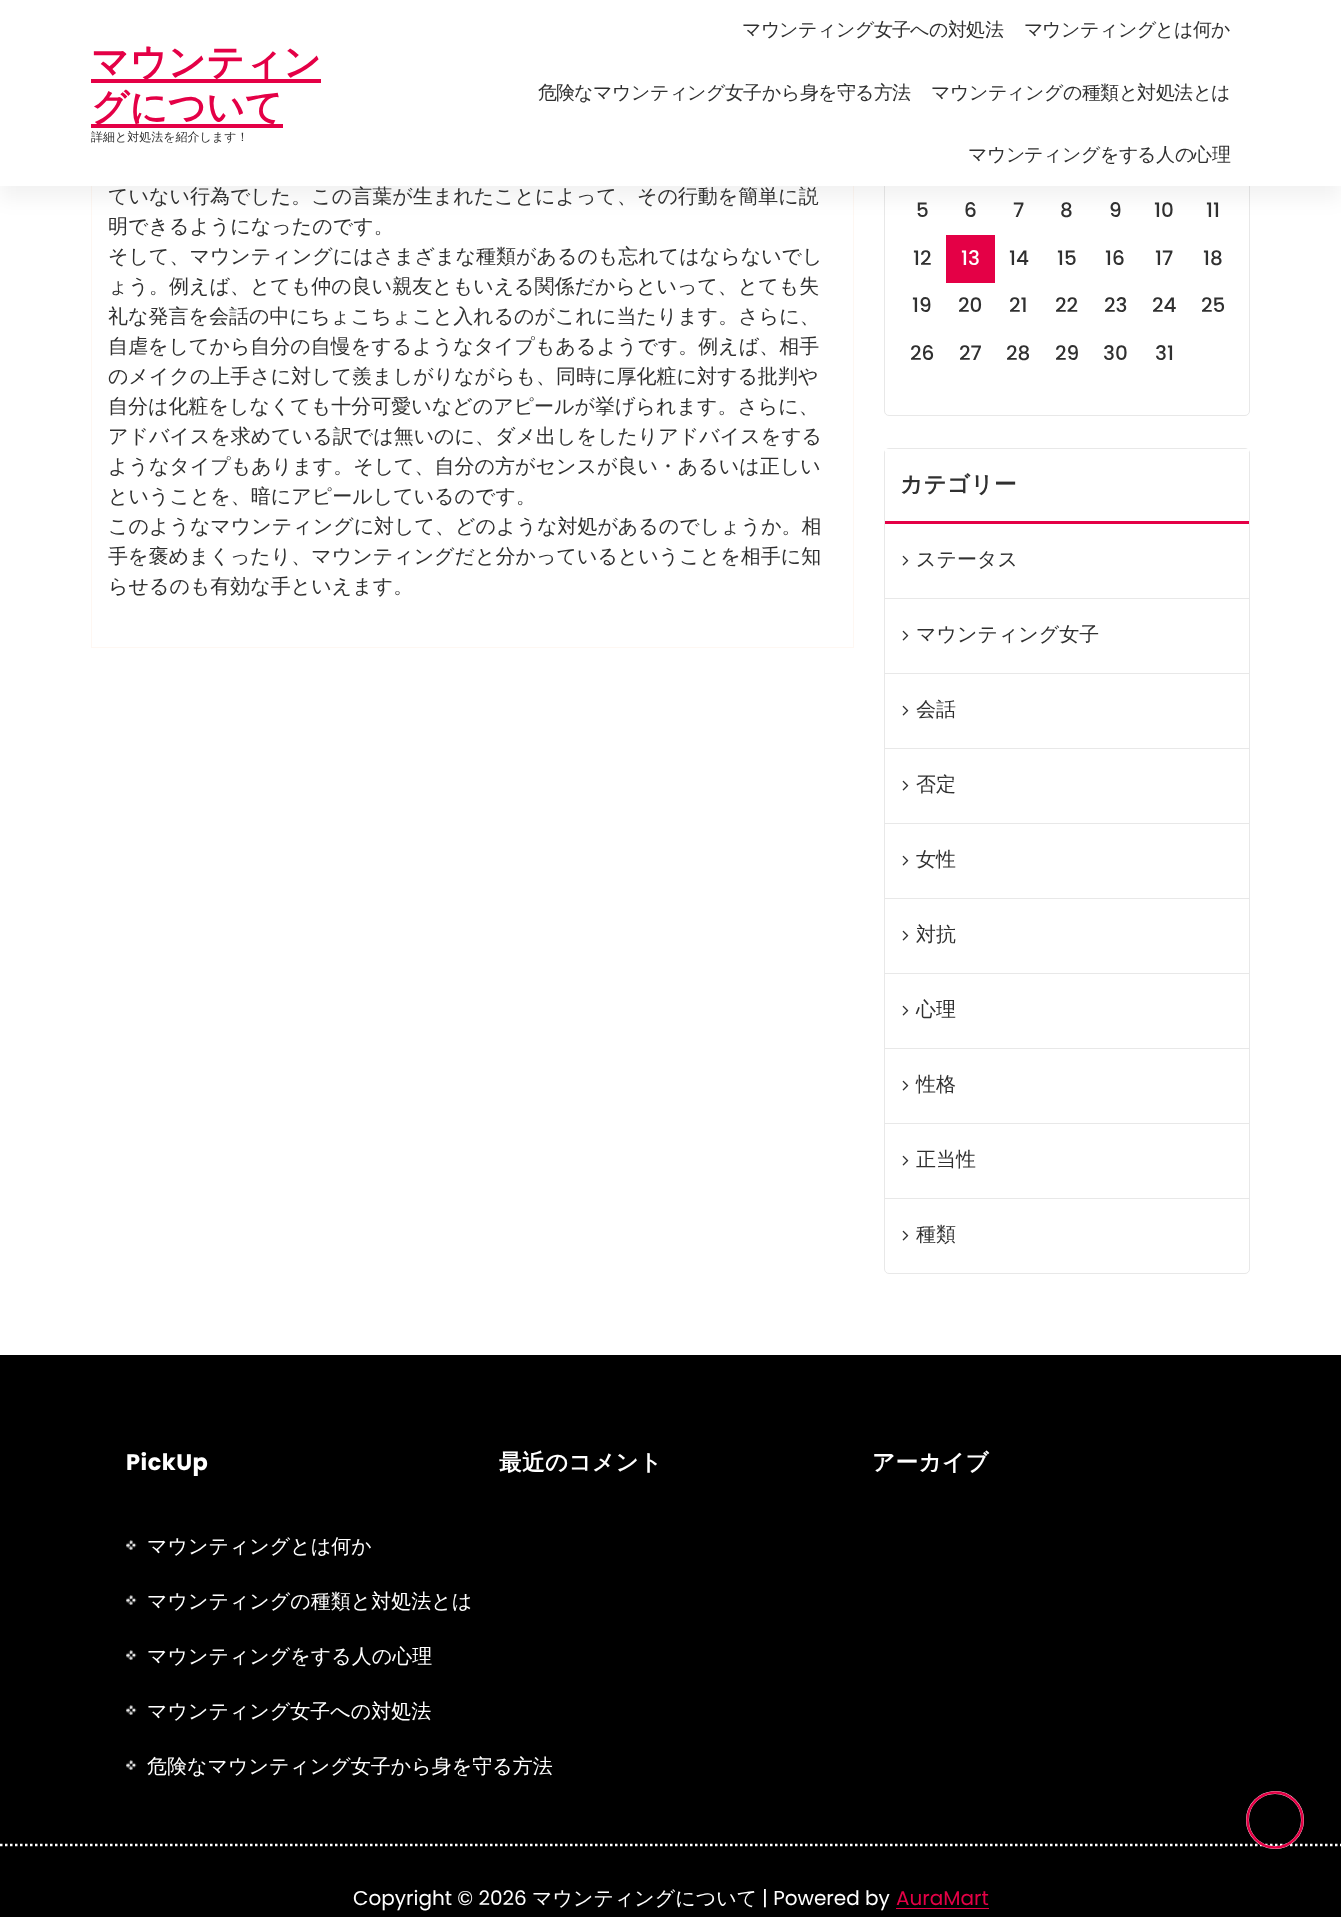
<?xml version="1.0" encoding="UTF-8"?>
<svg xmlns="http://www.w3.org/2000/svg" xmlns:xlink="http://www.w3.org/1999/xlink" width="1341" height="1917">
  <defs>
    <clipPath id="clip1"><path d="M 1246 1849 v -58 h 58 v 58 z" /></clipPath>
  </defs>
  <rect width="100%" height="100%" fill="#ffffff" />
  <rect x="91.5" y="-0.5" width="762" height="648" fill="none" stroke="#fef7f2" />
  <rect x="884.5" y="31.5" width="365" height="384" rx="4.5" fill="none" stroke="#e8e8e8" />
  <rect y="11" width="1341" height="188" fill="#000000" fill-opacity="0.05" filter="blur(9.5px)" />
  <rect width="1341" height="186" fill="#ffffff" />
  <rect x="91" y="79" width="230" height="4" fill="#e40046" />
  <rect x="91" y="124" width="192" height="4" fill="#e40046" />
  <rect x="946" y="235" width="49" height="48" fill="#e40046" />
  <rect x="884.5" y="448.5" width="365" height="825" rx="4.5" fill="none" stroke="#e8e8e8" />
  <rect x="885" y="449" width="364" height="3" fill="#ffffff" />
  <rect x="885" y="521" width="364" height="3" fill="#e40046" />
  <rect x="885" y="598" width="364" height="1" fill="#e8e8e8" />
  <image x="902" y="555" width="7" height="11" xlink:href="image1.png" />
  <rect x="885" y="673" width="364" height="1" fill="#e8e8e8" />
  <image x="902" y="630" width="7" height="11" xlink:href="image1.png" />
  <rect x="885" y="748" width="364" height="1" fill="#e8e8e8" />
  <image x="902" y="705" width="7" height="11" xlink:href="image1.png" />
  <rect x="885" y="823" width="364" height="1" fill="#e8e8e8" />
  <image x="902" y="780" width="7" height="11" xlink:href="image1.png" />
  <rect x="885" y="898" width="364" height="1" fill="#e8e8e8" />
  <image x="902" y="855" width="7" height="11" xlink:href="image1.png" />
  <rect x="885" y="973" width="364" height="1" fill="#e8e8e8" />
  <image x="902" y="930" width="7" height="11" xlink:href="image1.png" />
  <rect x="885" y="1048" width="364" height="1" fill="#e8e8e8" />
  <image x="902" y="1005" width="7" height="11" xlink:href="image1.png" />
  <rect x="885" y="1123" width="364" height="1" fill="#e8e8e8" />
  <image x="902" y="1080" width="7" height="11" xlink:href="image1.png" />
  <rect x="885" y="1198" width="364" height="1" fill="#e8e8e8" />
  <image x="902" y="1155" width="7" height="11" xlink:href="image1.png" />
  <image x="902" y="1230" width="7" height="11" xlink:href="image1.png" />
  <rect y="1355" width="1341" height="562" fill="#000000" />
  <image x="126" y="1540" width="11" height="10" xlink:href="image2.png" />
  <image x="126" y="1595" width="11" height="10" xlink:href="image2.png" />
  <image x="126" y="1650" width="11" height="10" xlink:href="image2.png" />
  <image x="126" y="1705" width="11" height="10" xlink:href="image2.png" />
  <image x="126" y="1760" width="11" height="10" xlink:href="image2.png" />
  <path d="M 0 1845 h 1341" fill="none" stroke="#ffffff" stroke-width="2.5" stroke-dasharray="2.5 2.5" />
  <rect x="896" y="1908" width="93" height="1" fill="#e40046" />
  <circle cx="1275" cy="1820" r="27.5" fill="none" stroke="#fbf0f0" stroke-width="3" />
  <g clip-path="url(#clip1)">
    <path d="M 1247.5 1820 c 0 -15 12.5 -27.5 27.5 -27.5 c 15 0 27.5 12.5 27.5 27.5 c 0 15 -12.5 27.5 -27.5 27.5 c -15 0 -27.5 -12.5 -27.5 -27.5" fill="none" stroke="#e40046" stroke-width="2.5" />
  </g>
  <text x="91" y="75" style="font-family: WenQuanYi Zen Hei; font-size: 37.5px; font-weight: bold; fill: #e40046">マウンティン</text>
  <text x="91" y="120" style="font-family: WenQuanYi Zen Hei; font-size: 37.5px; font-weight: bold; fill: #e40046">グについて</text>
  <text x="91" y="141" style="font-family: WenQuanYi Zen Hei; font-size: 12px; font-weight: 500; fill: #303030">詳細と対処法を紹介します！</text>
  <text x="742" y="36" style="font-family: WenQuanYi Zen Hei; font-size: 19px; font-weight: 500; fill: #303030">マ</text>
  <text x="761" y="36" style="font-family: WenQuanYi Zen Hei; font-size: 19px; font-weight: 500; fill: #303030">ウ</text>
  <text x="779" y="36" style="font-family: WenQuanYi Zen Hei; font-size: 19px; font-weight: 500; fill: #303030">ン</text>
  <text x="798" y="36" style="font-family: WenQuanYi Zen Hei; font-size: 19px; font-weight: 500; fill: #303030">テ</text>
  <text x="817" y="36" style="font-family: WenQuanYi Zen Hei; font-size: 19px; font-weight: 500; fill: #303030">ィ</text>
  <text x="836" y="36" style="font-family: WenQuanYi Zen Hei; font-size: 19px; font-weight: 500; fill: #303030">ン</text>
  <text x="855" y="36" style="font-family: WenQuanYi Zen Hei; font-size: 19px; font-weight: 500; fill: #303030">グ</text>
  <text x="874" y="36" style="font-family: WenQuanYi Zen Hei; font-size: 19px; font-weight: 500; fill: #303030">女</text>
  <text x="892" y="36" style="font-family: WenQuanYi Zen Hei; font-size: 19px; font-weight: 500; fill: #303030">子</text>
  <text x="910" y="36" style="font-family: WenQuanYi Zen Hei; font-size: 19px; font-weight: 500; fill: #303030">へ</text>
  <text x="929" y="36" style="font-family: WenQuanYi Zen Hei; font-size: 19px; font-weight: 500; fill: #303030">の</text>
  <text x="948" y="36" style="font-family: WenQuanYi Zen Hei; font-size: 19px; font-weight: 500; fill: #303030">対</text>
  <text x="966" y="36" style="font-family: WenQuanYi Zen Hei; font-size: 19px; font-weight: 500; fill: #303030">処</text>
  <text x="985" y="36" style="font-family: WenQuanYi Zen Hei; font-size: 19px; font-weight: 500; fill: #303030">法</text>
  <text x="1024" y="36" style="font-family: WenQuanYi Zen Hei; font-size: 19px; font-weight: 500; fill: #303030">マ</text>
  <text x="1042" y="36" style="font-family: WenQuanYi Zen Hei; font-size: 19px; font-weight: 500; fill: #303030">ウ</text>
  <text x="1061" y="36" style="font-family: WenQuanYi Zen Hei; font-size: 19px; font-weight: 500; fill: #303030">ン</text>
  <text x="1080" y="36" style="font-family: WenQuanYi Zen Hei; font-size: 19px; font-weight: 500; fill: #303030">テ</text>
  <text x="1099" y="36" style="font-family: WenQuanYi Zen Hei; font-size: 19px; font-weight: 500; fill: #303030">ィ</text>
  <text x="1118" y="36" style="font-family: WenQuanYi Zen Hei; font-size: 19px; font-weight: 500; fill: #303030">ン</text>
  <text x="1137" y="36" style="font-family: WenQuanYi Zen Hei; font-size: 19px; font-weight: 500; fill: #303030">グ</text>
  <text x="1155" y="36" style="font-family: WenQuanYi Zen Hei; font-size: 19px; font-weight: 500; fill: #303030">と</text>
  <text x="1174" y="36" style="font-family: WenQuanYi Zen Hei; font-size: 19px; font-weight: 500; fill: #303030">は</text>
  <text x="1193" y="36" style="font-family: WenQuanYi Zen Hei; font-size: 19px; font-weight: 500; fill: #303030">何</text>
  <text x="1211" y="36" style="font-family: WenQuanYi Zen Hei; font-size: 19px; font-weight: 500; fill: #303030">か</text>
  <text x="538" y="99" style="font-family: WenQuanYi Zen Hei; font-size: 19px; font-weight: 500; fill: #303030">危</text>
  <text x="556" y="99" style="font-family: WenQuanYi Zen Hei; font-size: 19px; font-weight: 500; fill: #303030">険</text>
  <text x="574" y="99" style="font-family: WenQuanYi Zen Hei; font-size: 19px; font-weight: 500; fill: #303030">な</text>
  <text x="593" y="99" style="font-family: WenQuanYi Zen Hei; font-size: 19px; font-weight: 500; fill: #303030">マ</text>
  <text x="612" y="99" style="font-family: WenQuanYi Zen Hei; font-size: 19px; font-weight: 500; fill: #303030">ウ</text>
  <text x="631" y="99" style="font-family: WenQuanYi Zen Hei; font-size: 19px; font-weight: 500; fill: #303030">ン</text>
  <text x="650" y="99" style="font-family: WenQuanYi Zen Hei; font-size: 19px; font-weight: 500; fill: #303030">テ</text>
  <text x="669" y="99" style="font-family: WenQuanYi Zen Hei; font-size: 19px; font-weight: 500; fill: #303030">ィ</text>
  <text x="687" y="99" style="font-family: WenQuanYi Zen Hei; font-size: 19px; font-weight: 500; fill: #303030">ン</text>
  <text x="706" y="99" style="font-family: WenQuanYi Zen Hei; font-size: 19px; font-weight: 500; fill: #303030">グ</text>
  <text x="725" y="99" style="font-family: WenQuanYi Zen Hei; font-size: 19px; font-weight: 500; fill: #303030">女</text>
  <text x="743" y="99" style="font-family: WenQuanYi Zen Hei; font-size: 19px; font-weight: 500; fill: #303030">子</text>
  <text x="762" y="99" style="font-family: WenQuanYi Zen Hei; font-size: 19px; font-weight: 500; fill: #303030">か</text>
  <text x="781" y="99" style="font-family: WenQuanYi Zen Hei; font-size: 19px; font-weight: 500; fill: #303030">ら</text>
  <text x="800" y="99" style="font-family: WenQuanYi Zen Hei; font-size: 19px; font-weight: 500; fill: #303030">身</text>
  <text x="818" y="99" style="font-family: WenQuanYi Zen Hei; font-size: 19px; font-weight: 500; fill: #303030">を</text>
  <text x="837" y="99" style="font-family: WenQuanYi Zen Hei; font-size: 19px; font-weight: 500; fill: #303030">守</text>
  <text x="855" y="99" style="font-family: WenQuanYi Zen Hei; font-size: 19px; font-weight: 500; fill: #303030">る</text>
  <text x="874" y="99" style="font-family: WenQuanYi Zen Hei; font-size: 19px; font-weight: 500; fill: #303030">方</text>
  <text x="892" y="99" style="font-family: WenQuanYi Zen Hei; font-size: 19px; font-weight: 500; fill: #303030">法</text>
  <text x="931" y="99" style="font-family: WenQuanYi Zen Hei; font-size: 19px; font-weight: 500; fill: #303030">マ</text>
  <text x="950" y="99" style="font-family: WenQuanYi Zen Hei; font-size: 19px; font-weight: 500; fill: #303030">ウ</text>
  <text x="969" y="99" style="font-family: WenQuanYi Zen Hei; font-size: 19px; font-weight: 500; fill: #303030">ン</text>
  <text x="988" y="99" style="font-family: WenQuanYi Zen Hei; font-size: 19px; font-weight: 500; fill: #303030">テ</text>
  <text x="1006" y="99" style="font-family: WenQuanYi Zen Hei; font-size: 19px; font-weight: 500; fill: #303030">ィ</text>
  <text x="1025" y="99" style="font-family: WenQuanYi Zen Hei; font-size: 19px; font-weight: 500; fill: #303030">ン</text>
  <text x="1044" y="99" style="font-family: WenQuanYi Zen Hei; font-size: 19px; font-weight: 500; fill: #303030">グ</text>
  <text x="1063" y="99" style="font-family: WenQuanYi Zen Hei; font-size: 19px; font-weight: 500; fill: #303030">の</text>
  <text x="1082" y="99" style="font-family: WenQuanYi Zen Hei; font-size: 19px; font-weight: 500; fill: #303030">種</text>
  <text x="1100" y="99" style="font-family: WenQuanYi Zen Hei; font-size: 19px; font-weight: 500; fill: #303030">類</text>
  <text x="1119" y="99" style="font-family: WenQuanYi Zen Hei; font-size: 19px; font-weight: 500; fill: #303030">と</text>
  <text x="1137" y="99" style="font-family: WenQuanYi Zen Hei; font-size: 19px; font-weight: 500; fill: #303030">対</text>
  <text x="1156" y="99" style="font-family: WenQuanYi Zen Hei; font-size: 19px; font-weight: 500; fill: #303030">処</text>
  <text x="1174" y="99" style="font-family: WenQuanYi Zen Hei; font-size: 19px; font-weight: 500; fill: #303030">法</text>
  <text x="1193" y="99" style="font-family: WenQuanYi Zen Hei; font-size: 19px; font-weight: 500; fill: #303030">と</text>
  <text x="1211" y="99" style="font-family: WenQuanYi Zen Hei; font-size: 19px; font-weight: 500; fill: #303030">は</text>
  <text x="968" y="161" style="font-family: WenQuanYi Zen Hei; font-size: 19px; font-weight: 500; fill: #303030">マ</text>
  <text x="987" y="161" style="font-family: WenQuanYi Zen Hei; font-size: 19px; font-weight: 500; fill: #303030">ウ</text>
  <text x="1006" y="161" style="font-family: WenQuanYi Zen Hei; font-size: 19px; font-weight: 500; fill: #303030">ン</text>
  <text x="1024" y="161" style="font-family: WenQuanYi Zen Hei; font-size: 19px; font-weight: 500; fill: #303030">テ</text>
  <text x="1043" y="161" style="font-family: WenQuanYi Zen Hei; font-size: 19px; font-weight: 500; fill: #303030">ィ</text>
  <text x="1062" y="161" style="font-family: WenQuanYi Zen Hei; font-size: 19px; font-weight: 500; fill: #303030">ン</text>
  <text x="1081" y="161" style="font-family: WenQuanYi Zen Hei; font-size: 19px; font-weight: 500; fill: #303030">グ</text>
  <text x="1100" y="161" style="font-family: WenQuanYi Zen Hei; font-size: 19px; font-weight: 500; fill: #303030">を</text>
  <text x="1119" y="161" style="font-family: WenQuanYi Zen Hei; font-size: 19px; font-weight: 500; fill: #303030">す</text>
  <text x="1137" y="161" style="font-family: WenQuanYi Zen Hei; font-size: 19px; font-weight: 500; fill: #303030">る</text>
  <text x="1156" y="161" style="font-family: WenQuanYi Zen Hei; font-size: 19px; font-weight: 500; fill: #303030">人</text>
  <text x="1175" y="161" style="font-family: WenQuanYi Zen Hei; font-size: 19px; font-weight: 500; fill: #303030">の</text>
  <text x="1193" y="161" style="font-family: WenQuanYi Zen Hei; font-size: 19px; font-weight: 500; fill: #303030">心</text>
  <text x="1212" y="161" style="font-family: WenQuanYi Zen Hei; font-size: 19px; font-weight: 500; fill: #303030">理</text>
  <text x="108" y="203" style="font-family: WenQuanYi Zen Hei; font-size: 20px; font-weight: 500; fill: #303030">ていない行為でした。この言葉が生まれたことによって、その行動を簡単に説</text>
  <text x="108" y="233" style="font-family: WenQuanYi Zen Hei; font-size: 20px; font-weight: 500; fill: #303030">明できるようになったのです。</text>
  <text x="108" y="263" style="font-family: WenQuanYi Zen Hei; font-size: 20px; font-weight: 500; fill: #303030">そして、マウンティングにはさまざまな種類があるのも忘れてはならないでし</text>
  <text x="108" y="293" style="font-family: WenQuanYi Zen Hei; font-size: 20px; font-weight: 500; fill: #303030">ょう。例えば、とても仲の良い親友ともいえる関係だからといって、とても失</text>
  <text x="108" y="323" style="font-family: WenQuanYi Zen Hei; font-size: 20px; font-weight: 500; fill: #303030">礼な発言を会話の中にちょこちょこと入れるのがこれに当たります。さらに、</text>
  <text x="108" y="353" style="font-family: WenQuanYi Zen Hei; font-size: 20px; font-weight: 500; fill: #303030">自虐をしてから自分の自慢をするようなタイプもあるようです。例えば、相手</text>
  <text x="108" y="383" style="font-family: WenQuanYi Zen Hei; font-size: 20px; font-weight: 500; fill: #303030">のメイクの上手さに対して羨ましがりながらも、同時に厚化粧に対する批判や</text>
  <text x="108" y="413" style="font-family: WenQuanYi Zen Hei; font-size: 20px; font-weight: 500; fill: #303030">自分は化粧をしなくても十分可愛いなどのアピールが挙げられます。さらに、</text>
  <text x="108" y="443" style="font-family: WenQuanYi Zen Hei; font-size: 20px; font-weight: 500; fill: #303030">アドバイスを求めている訳では無いのに、ダメ出しをしたりアドバイスをする</text>
  <text x="108" y="473" style="font-family: WenQuanYi Zen Hei; font-size: 20px; font-weight: 500; fill: #303030">ようなタイプもあります。そして、自分の方がセンスが良い・あるいは正しい</text>
  <text x="108" y="503" style="font-family: WenQuanYi Zen Hei; font-size: 20px; font-weight: 500; fill: #303030">ということを、暗にアピールしているのです。</text>
  <text x="108" y="533" style="font-family: WenQuanYi Zen Hei; font-size: 20px; font-weight: 500; fill: #303030">このようなマウンティングに対して、どのような対処があるのでしょうか。相</text>
  <text x="108" y="563" style="font-family: WenQuanYi Zen Hei; font-size: 20px; font-weight: 500; fill: #303030">手を褒めまくったり、マウンティングだと分かっているということを相手に知</text>
  <text x="108" y="593" style="font-family: WenQuanYi Zen Hei; font-size: 20px; font-weight: 500; fill: #303030">らせるのも有効な手といえます。</text>
  <text x="916" y="217" style="font-family: Poppins; font-size: 20px; font-weight: 500; fill: #303030">5</text>
  <text x="964" y="217" style="font-family: Poppins; font-size: 20px; font-weight: 500; fill: #303030">6</text>
  <text x="1013" y="217" style="font-family: Poppins; font-size: 20px; font-weight: 500; fill: #303030">7</text>
  <text x="1060" y="217" style="font-family: Poppins; font-size: 20px; font-weight: 500; fill: #303030">8</text>
  <text x="1109" y="217" style="font-family: Poppins; font-size: 20px; font-weight: 500; fill: #303030">9</text>
  <text x="1154" y="217" style="font-family: Poppins; font-size: 20px; font-weight: 500; fill: #303030">10</text>
  <text x="1206" y="217" style="font-family: Poppins; font-size: 20px; font-weight: 500; fill: #303030">11</text>
  <text x="913" y="265" style="font-family: Poppins; font-size: 20px; font-weight: 500; fill: #303030">12</text>
  <text x="961" y="265" style="font-family: Poppins; font-size: 20px; font-weight: 500; fill: #ffffff">13</text>
  <text x="1009" y="265" style="font-family: Poppins; font-size: 20px; font-weight: 500; fill: #303030">14</text>
  <text x="1057" y="265" style="font-family: Poppins; font-size: 20px; font-weight: 500; fill: #303030">15</text>
  <text x="1105" y="265" style="font-family: Poppins; font-size: 20px; font-weight: 500; fill: #303030">16</text>
  <text x="1155" y="265" style="font-family: Poppins; font-size: 20px; font-weight: 500; fill: #303030">17</text>
  <text x="1203" y="265" style="font-family: Poppins; font-size: 20px; font-weight: 500; fill: #303030">18</text>
  <text x="912" y="312" style="font-family: Poppins; font-size: 20px; font-weight: 500; fill: #303030">19</text>
  <text x="958" y="312" style="font-family: Poppins; font-size: 20px; font-weight: 500; fill: #303030">20</text>
  <text x="1009" y="312" style="font-family: Poppins; font-size: 20px; font-weight: 500; fill: #303030">21</text>
  <text x="1055" y="312" style="font-family: Poppins; font-size: 20px; font-weight: 500; fill: #303030">22</text>
  <text x="1104" y="312" style="font-family: Poppins; font-size: 20px; font-weight: 500; fill: #303030">23</text>
  <text x="1152" y="312" style="font-family: Poppins; font-size: 20px; font-weight: 500; fill: #303030">24</text>
  <text x="1201" y="312" style="font-family: Poppins; font-size: 20px; font-weight: 500; fill: #303030">25</text>
  <text x="910" y="360" style="font-family: Poppins; font-size: 20px; font-weight: 500; fill: #303030">26</text>
  <text x="959" y="360" style="font-family: Poppins; font-size: 20px; font-weight: 500; fill: #303030">27</text>
  <text x="1006" y="360" style="font-family: Poppins; font-size: 20px; font-weight: 500; fill: #303030">28</text>
  <text x="1055" y="360" style="font-family: Poppins; font-size: 20px; font-weight: 500; fill: #303030">29</text>
  <text x="1103" y="360" style="font-family: Poppins; font-size: 20px; font-weight: 500; fill: #303030">30</text>
  <text x="1155" y="360" style="font-family: Poppins; font-size: 20px; font-weight: 500; fill: #303030">31</text>
  <text x="900" y="492" style="font-family: WenQuanYi Zen Hei; font-size: 22.5px; font-weight: bold; letter-spacing: 0.5px; fill: #303030">カテゴリー</text>
  <text x="916" y="566" style="font-family: WenQuanYi Zen Hei; font-size: 20px; font-weight: 500; fill: #303030">ステータス</text>
  <text x="916" y="641" style="font-family: WenQuanYi Zen Hei; font-size: 20px; font-weight: 500; fill: #303030">マウンティング女子</text>
  <text x="916" y="716" style="font-family: WenQuanYi Zen Hei; font-size: 20px; font-weight: 500; fill: #303030">会話</text>
  <text x="916" y="791" style="font-family: WenQuanYi Zen Hei; font-size: 20px; font-weight: 500; fill: #303030">否定</text>
  <text x="916" y="866" style="font-family: WenQuanYi Zen Hei; font-size: 20px; font-weight: 500; fill: #303030">女性</text>
  <text x="916" y="941" style="font-family: WenQuanYi Zen Hei; font-size: 20px; font-weight: 500; fill: #303030">対抗</text>
  <text x="916" y="1016" style="font-family: WenQuanYi Zen Hei; font-size: 20px; font-weight: 500; fill: #303030">心理</text>
  <text x="916" y="1091" style="font-family: WenQuanYi Zen Hei; font-size: 20px; font-weight: 500; fill: #303030">性格</text>
  <text x="916" y="1166" style="font-family: WenQuanYi Zen Hei; font-size: 20px; font-weight: 500; fill: #303030">正当性</text>
  <text x="916" y="1241" style="font-family: WenQuanYi Zen Hei; font-size: 20px; font-weight: 500; fill: #303030">種類</text>
  <text x="126" y="1470" style="font-family: Poppins; font-size: 22.5px; font-weight: bold; letter-spacing: 0.5px; fill: #ffffff">PickUp</text>
  <text x="147" y="1553" style="font-family: WenQuanYi Zen Hei; font-size: 20px; font-weight: 500; fill: #ffffff">マウンティングとは何か</text>
  <text x="147" y="1608" style="font-family: WenQuanYi Zen Hei; font-size: 20px; font-weight: 500; fill: #ffffff">マウンティングの種類と対処法とは</text>
  <text x="147" y="1663" style="font-family: WenQuanYi Zen Hei; font-size: 20px; font-weight: 500; fill: #ffffff">マウンティングをする人の心理</text>
  <text x="147" y="1718" style="font-family: WenQuanYi Zen Hei; font-size: 20px; font-weight: 500; fill: #ffffff">マウンティング女子への対処法</text>
  <text x="147" y="1773" style="font-family: WenQuanYi Zen Hei; font-size: 20px; font-weight: 500; fill: #ffffff">危険なマウンティング女子から身を守る方法</text>
  <text x="499" y="1470" style="font-family: WenQuanYi Zen Hei; font-size: 22.5px; font-weight: bold; letter-spacing: 0.5px; fill: #ffffff">最近のコメント</text>
  <text x="872" y="1470" style="font-family: WenQuanYi Zen Hei; font-size: 22.5px; font-weight: bold; letter-spacing: 0.5px; fill: #ffffff">アーカイブ</text>
  <text x="353" y="1905" style="font-family: Poppins; font-size: 20px; fill: #ffffff">Copyright © 2026</text>
  <text x="532" y="1905" style="font-family: WenQuanYi Zen Hei; font-size: 20px; font-weight: 500; fill: #ffffff">マウンティングについて</text>
  <text x="762" y="1905" style="font-family: Poppins; font-size: 20px; fill: #ffffff">| Powered by</text>
  <text x="896" y="1905" style="font-family: Poppins; font-size: 20px; fill: #e40046">AuraMart</text>
</svg>
